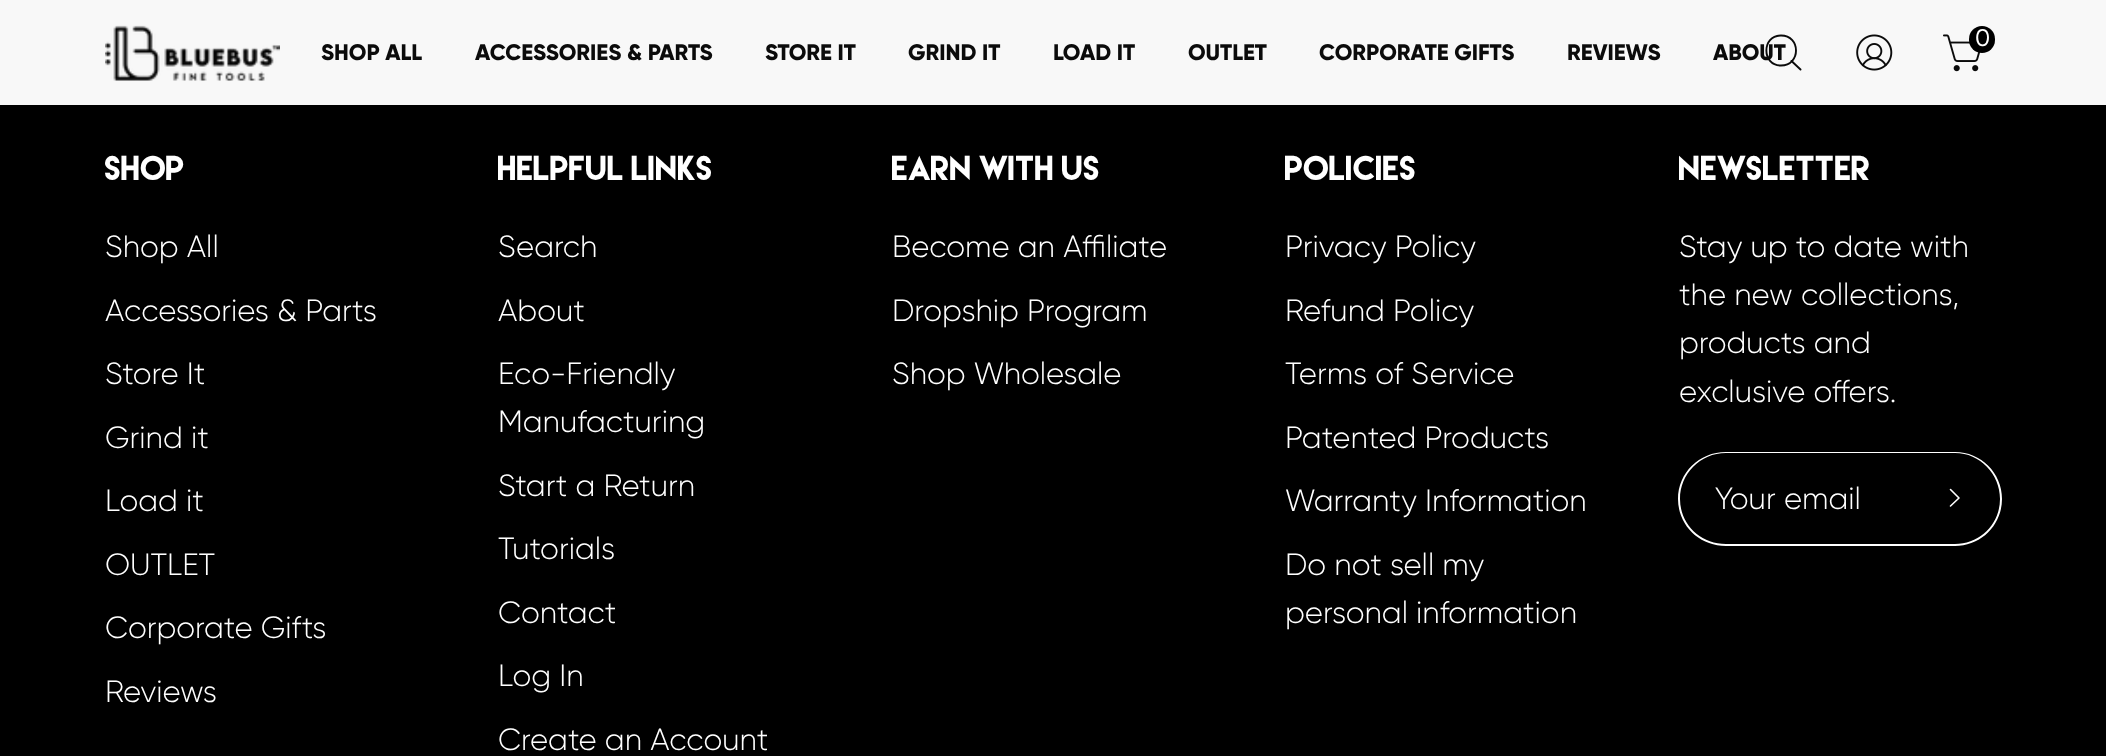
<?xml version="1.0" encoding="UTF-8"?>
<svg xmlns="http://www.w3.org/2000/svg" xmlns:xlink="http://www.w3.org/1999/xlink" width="2106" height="756">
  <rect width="100%" height="100%" fill="#000000" />
  <rect width="2106" height="105" fill="#f8f8f8" />
  <image x="105" y="25" width="175" height="56" xlink:href="image1.png" />
  <path d="M 1781 65.5 c 20 0 20 -30 0 -30 c -19.5 0 -19.5 30 0 30 z m 10.5 -4.5 l 9 8.5" fill="none" stroke="#0b0b0b" stroke-width="1.9" stroke-linecap="round" stroke-linejoin="round" />
  <image x="1856" y="34" width="37" height="37" xlink:href="image2.png" />
  <image x="1943" y="34" width="38" height="38" xlink:href="image3.png" />
  <rect x="1969" y="26" width="26" height="27" rx="13" fill="#000000" />
  <path d="M 1726 452 h 182 v 94 h -182 c -27 0 -48 -21 -48 -47 c 0 -26 21 -47 48 -47 z m 0 1 h 182 v 91 h -182 c -26 0 -46 -20 -46 -45 c 0 -25 20 -46 46 -46 z" fill="#ffffff" fill-rule="evenodd" />
  <path d="M 1908 452 h 47 c 26 0 47 21 47 47 c 0 26 -21 47 -47 47 h -47 z m 0 1 h 47 c 25 0 45 21 45 46 c 0 25 -20 45 -45 45 h -47 z" fill="#ffffff" fill-rule="evenodd" />
  <path d="M 1950.5 489.5 l 8.5 8.5 l -8.5 8" fill="none" stroke="#ffffff" stroke-width="1.6" stroke-linecap="round" stroke-linejoin="round" />
  <text x="1975" y="46" style="font-family: Gilroy; font-size: 23px; font-weight: bold; fill: #ffffff">0</text>
  <text x="321" y="60" style="font-family: Gilroy; font-size: 22.4px; font-weight: 800; fill: #0b0b0b">SHOP ALL</text>
  <text x="475" y="60" style="font-family: Gilroy; font-size: 22.4px; font-weight: 800; fill: #0b0b0b">ACCESSORIES &amp; PARTS</text>
  <text x="765" y="60" style="font-family: Gilroy; font-size: 22.4px; font-weight: 800; fill: #0b0b0b">STORE IT</text>
  <text x="908" y="60" style="font-family: Gilroy; font-size: 22.4px; font-weight: 800; fill: #0b0b0b">GRIND IT</text>
  <text x="1053" y="60" style="font-family: Gilroy; font-size: 22.4px; font-weight: 800; fill: #0b0b0b">LOAD IT</text>
  <text x="1188" y="60" style="font-family: Gilroy; font-size: 22.4px; font-weight: 800; fill: #0b0b0b">OUTLET</text>
  <text x="1319" y="60" style="font-family: Gilroy; font-size: 22.4px; font-weight: 800; fill: #0b0b0b">CORPORATE GIFTS</text>
  <text x="1567" y="60" style="font-family: Gilroy; font-size: 22.4px; font-weight: 800; fill: #0b0b0b">REVIEWS</text>
  <text x="1713" y="60" style="font-family: Gilroy; font-size: 22.4px; font-weight: 800; fill: #0b0b0b">ABOUT</text>
  <text x="105" y="180" style="font-family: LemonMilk; font-size: 30.75px; fill: #ffffff">SHOP</text>
  <text x="105" y="257" style="font-family: Gilroy; font-size: 30.75px; font-weight: 300; fill: #ffffff">Shop All</text>
  <text x="105" y="321" style="font-family: Gilroy; font-size: 30.75px; font-weight: 300; fill: #ffffff">Accessories &amp; Parts</text>
  <text x="105" y="384" style="font-family: Gilroy; font-size: 30.75px; font-weight: 300; fill: #ffffff">Store It</text>
  <text x="105" y="448" style="font-family: Gilroy; font-size: 30.75px; font-weight: 300; fill: #ffffff">Grind it</text>
  <text x="105" y="511" style="font-family: Gilroy; font-size: 30.75px; font-weight: 300; fill: #ffffff">Load it</text>
  <text x="105" y="575" style="font-family: Gilroy; font-size: 30.75px; font-weight: 300; fill: #ffffff">OUTLET</text>
  <text x="105" y="638" style="font-family: Gilroy; font-size: 30.75px; font-weight: 300; fill: #ffffff">Corporate Gifts</text>
  <text x="105" y="702" style="font-family: Gilroy; font-size: 30.75px; font-weight: 300; fill: #ffffff">Reviews</text>
  <text x="498" y="180" style="font-family: LemonMilk; font-size: 30.75px; fill: #ffffff">HELPFUL LINKS</text>
  <text x="498" y="257" style="font-family: Gilroy; font-size: 30.75px; font-weight: 300; fill: #ffffff">Search</text>
  <text x="498" y="321" style="font-family: Gilroy; font-size: 30.75px; font-weight: 300; fill: #ffffff">About</text>
  <text x="498" y="384" style="font-family: Gilroy; font-size: 30.75px; font-weight: 300; fill: #ffffff">Eco-Friendly</text>
  <text x="498" y="432" style="font-family: Gilroy; font-size: 30.75px; font-weight: 300; fill: #ffffff">Manufacturing</text>
  <text x="498" y="496" style="font-family: Gilroy; font-size: 30.75px; font-weight: 300; fill: #ffffff">Start a Return</text>
  <text x="498" y="559" style="font-family: Gilroy; font-size: 30.75px; font-weight: 300; fill: #ffffff">Tutorials</text>
  <text x="498" y="623" style="font-family: Gilroy; font-size: 30.75px; font-weight: 300; fill: #ffffff">Contact</text>
  <text x="498" y="686" style="font-family: Gilroy; font-size: 30.75px; font-weight: 300; fill: #ffffff">Log In</text>
  <text x="498" y="750" style="font-family: Gilroy; font-size: 30.75px; font-weight: 300; fill: #ffffff">Create an Account</text>
  <text x="892" y="180" style="font-family: LemonMilk; font-size: 30.75px; fill: #ffffff">EARN WITH US</text>
  <text x="892" y="257" style="font-family: Gilroy; font-size: 30.75px; font-weight: 300; fill: #ffffff">Become an Affiliate</text>
  <text x="892" y="321" style="font-family: Gilroy; font-size: 30.75px; font-weight: 300; fill: #ffffff">Dropship Program</text>
  <text x="892" y="384" style="font-family: Gilroy; font-size: 30.75px; font-weight: 300; fill: #ffffff">Shop Wholesale</text>
  <text x="1285" y="180" style="font-family: LemonMilk; font-size: 30.75px; fill: #ffffff">POLICIES</text>
  <text x="1285" y="257" style="font-family: Gilroy; font-size: 30.75px; font-weight: 300; fill: #ffffff">Privacy Policy</text>
  <text x="1285" y="321" style="font-family: Gilroy; font-size: 30.75px; font-weight: 300; fill: #ffffff">Refund Policy</text>
  <text x="1285" y="384" style="font-family: Gilroy; font-size: 30.75px; font-weight: 300; fill: #ffffff">Terms of Service</text>
  <text x="1285" y="448" style="font-family: Gilroy; font-size: 30.75px; font-weight: 300; fill: #ffffff">Patented Products</text>
  <text x="1285" y="511" style="font-family: Gilroy; font-size: 30.75px; font-weight: 300; fill: #ffffff">Warranty Information</text>
  <text x="1285" y="575" style="font-family: Gilroy; font-size: 30.75px; font-weight: 300; fill: #ffffff">Do not sell my</text>
  <text x="1285" y="623" style="font-family: Gilroy; font-size: 30.75px; font-weight: 300; fill: #ffffff">personal information</text>
  <text x="1679" y="180" style="font-family: LemonMilk; font-size: 30.75px; fill: #ffffff">NEWSLETTER</text>
  <text x="1679" y="257" style="font-family: Gilroy; font-size: 30.75px; font-weight: 300; fill: #ffffff">Stay up to date with</text>
  <text x="1679" y="305" style="font-family: Gilroy; font-size: 30.75px; font-weight: 300; fill: #ffffff">the new collections,</text>
  <text x="1679" y="353" style="font-family: Gilroy; font-size: 30.75px; font-weight: 300; fill: #ffffff">products and</text>
  <text x="1679" y="402" style="font-family: Gilroy; font-size: 30.75px; font-weight: 300; fill: #ffffff">exclusive offers.</text>
  <text x="1715" y="509" style="font-family: Gilroy; font-size: 30.75px; font-weight: 300; fill: #ffffff">Your email</text>
</svg>
